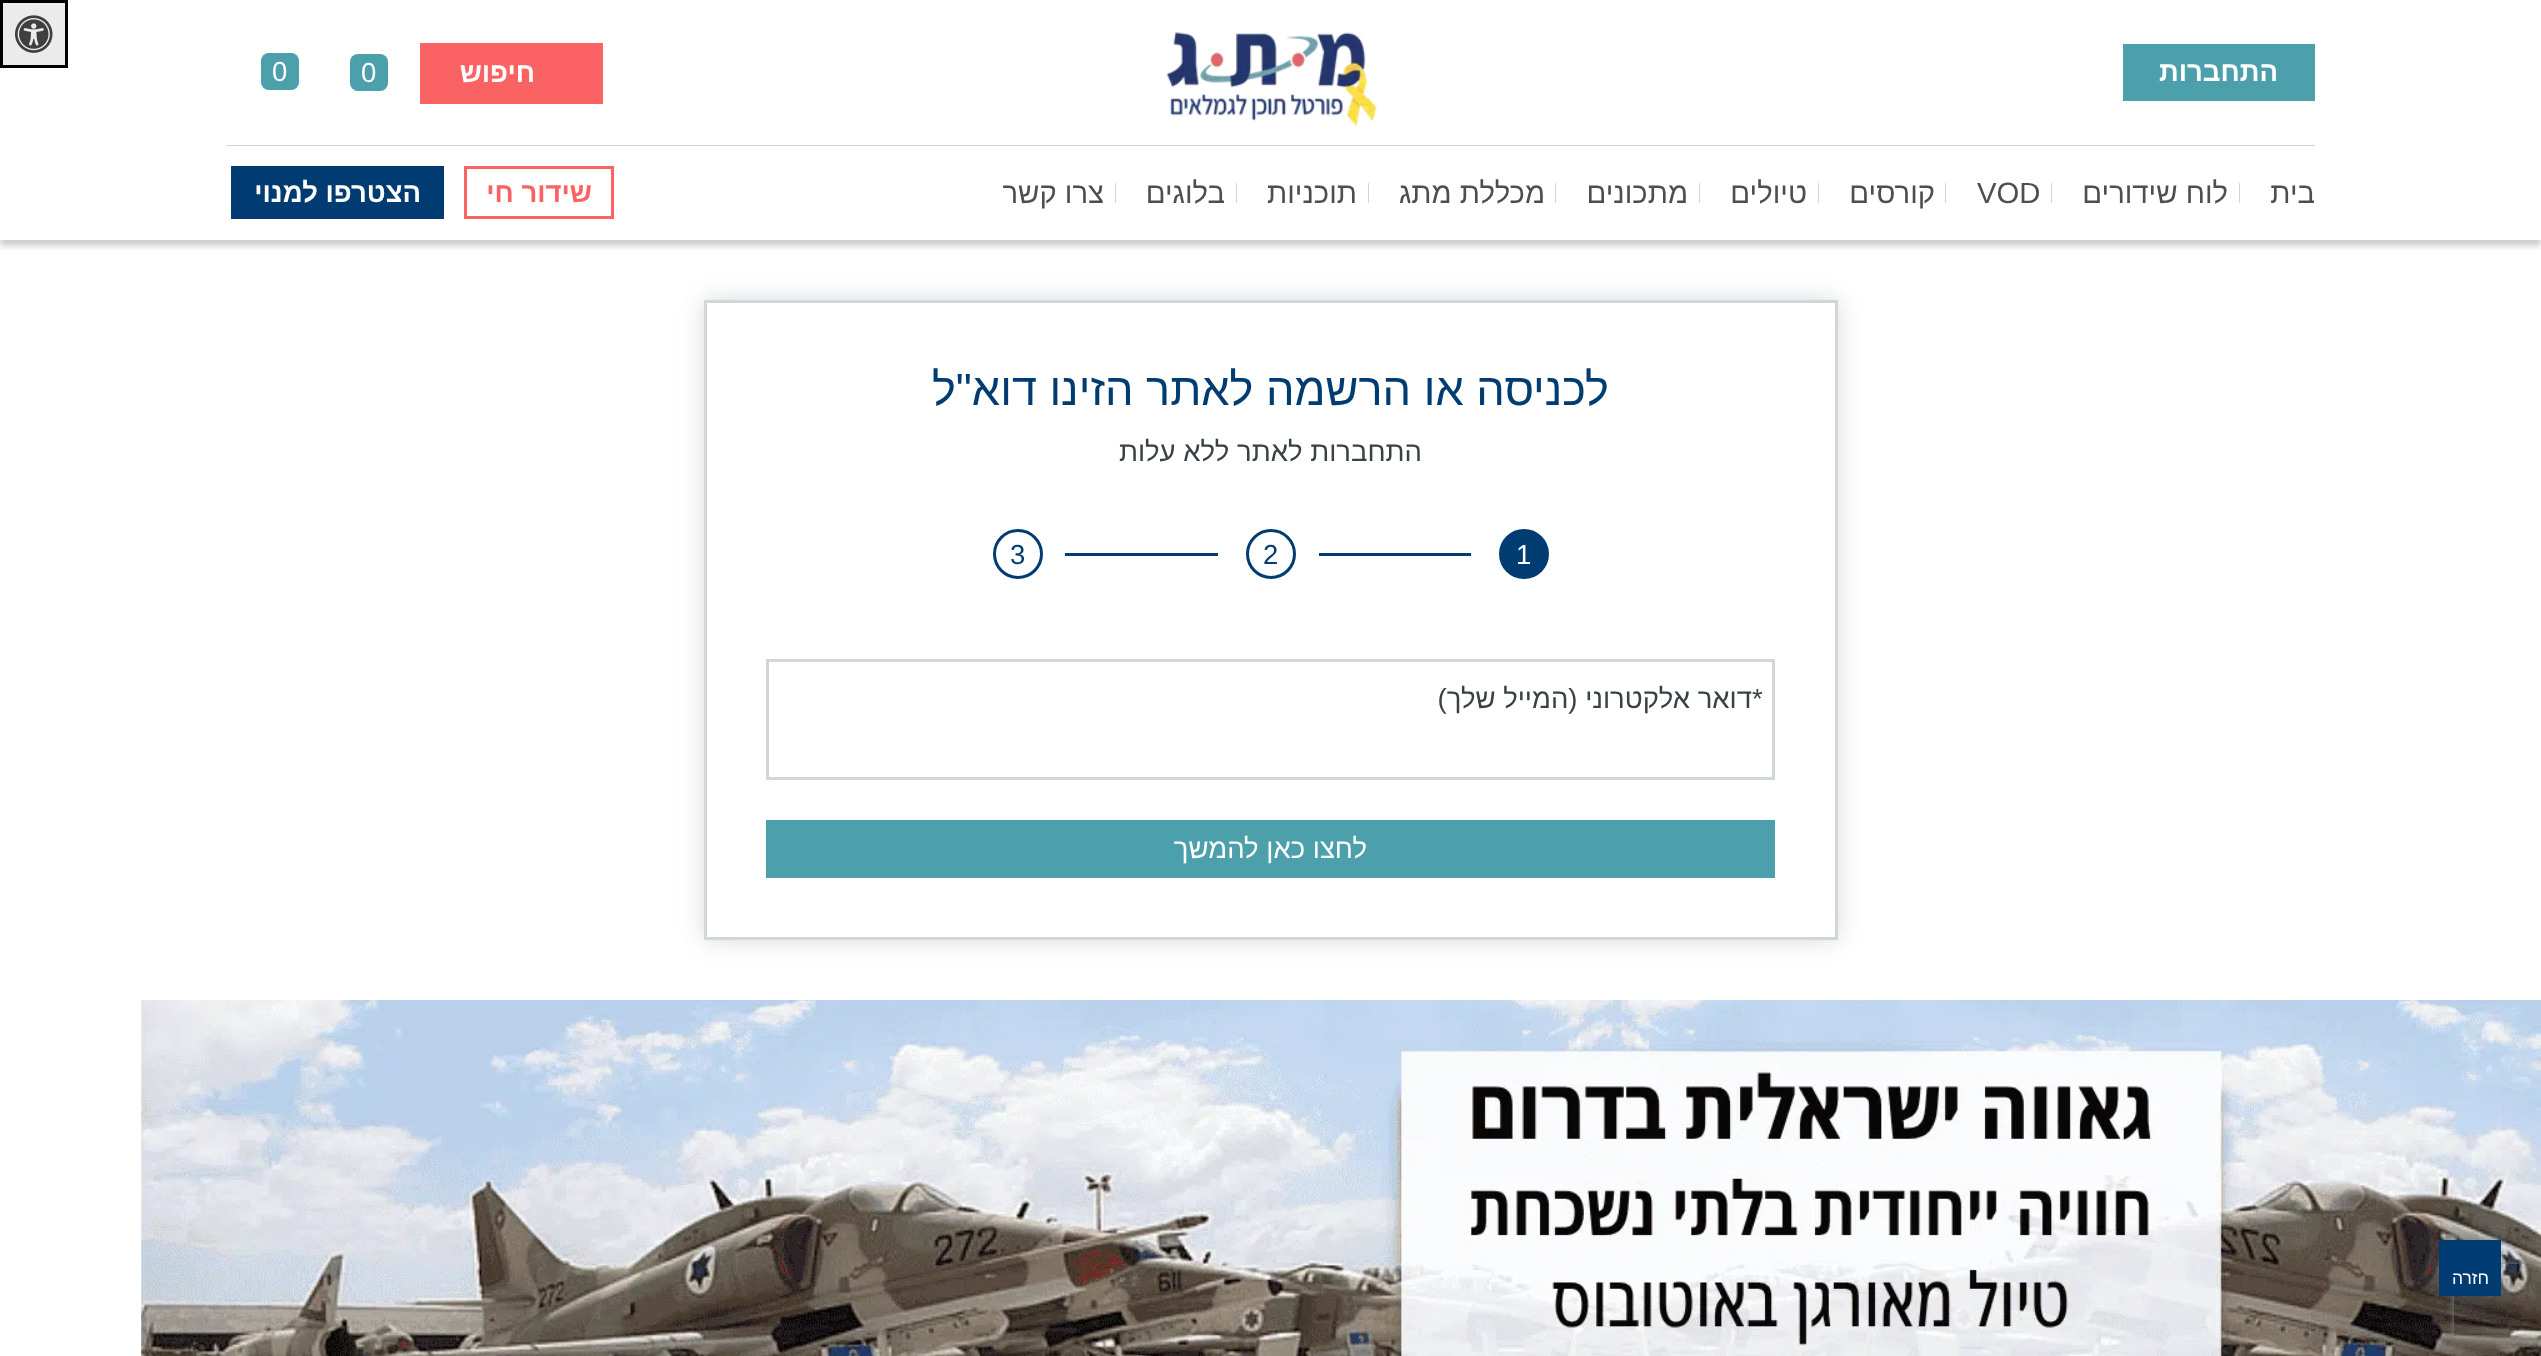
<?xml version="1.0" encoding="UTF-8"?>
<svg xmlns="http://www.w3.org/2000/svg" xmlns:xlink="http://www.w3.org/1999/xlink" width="2541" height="1356">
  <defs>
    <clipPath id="clip1"><rect x="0" y="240" width="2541" height="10" /></clipPath>
    <clipPath id="clip2"><path d="M 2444 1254 h 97 v 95 h -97 z m 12.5 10 h 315 c 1.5 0 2.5 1 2.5 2.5 v 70 c 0 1.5 -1 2.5 -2.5 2.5 h -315 c -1.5 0 -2.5 -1 -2.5 -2.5 v -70 c 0 -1.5 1 -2.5 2.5 -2.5 z" clip-rule="evenodd" /></clipPath>
  </defs>
  <rect width="100%" height="100%" fill="#ffffff" />
  <rect x="1.5" y="1.5" width="65" height="65" fill="#ebebeb" stroke="#000000" stroke-width="3" />
  <image x="15" y="15" width="38" height="38" xlink:href="image1.png" />
  <rect x="2123" y="44" width="192" height="57" fill="#4ca0ac" />
  <image x="1166" y="32" width="211" height="94" xlink:href="image2.png" />
  <rect x="420" y="43" width="183" height="61" fill="#fa6264" />
  <rect x="350" y="54" width="38" height="37" rx="8" fill="#4ca0ac" />
  <rect x="261" y="53" width="38" height="37" rx="8" fill="#4ca0ac" />
  <g clip-path="url(#clip1)">
    <rect y="153" width="2541" height="93" fill="#000000" fill-opacity="0.2" filter="blur(3px)" />
  </g>
  <rect x="226" y="145" width="2089" height="1" fill="#d1d6d9" />
  <rect x="2239" y="183" width="1" height="20" fill="#d1d6d9" />
  <rect x="2051" y="183" width="1" height="20" fill="#d1d6d9" />
  <rect x="1945" y="183" width="1" height="20" fill="#d1d6d9" />
  <rect x="1818" y="183" width="1" height="20" fill="#d1d6d9" />
  <rect x="1699" y="183" width="1" height="20" fill="#d1d6d9" />
  <rect x="1555" y="183" width="1" height="20" fill="#d1d6d9" />
  <rect x="1368" y="183" width="1" height="20" fill="#d1d6d9" />
  <rect x="1236" y="183" width="1" height="20" fill="#d1d6d9" />
  <rect x="1115" y="183" width="1" height="20" fill="#d1d6d9" />
  <rect x="465.5" y="167.5" width="147" height="50" fill="none" stroke="#fa6264" stroke-width="3" />
  <rect x="231" y="166" width="213" height="53" fill="#003c71" />
  <rect x="704" y="300" width="1134" height="640" fill="#d1d6d9" fill-opacity="0.9" filter="blur(12.5px)" />
  <rect x="705.5" y="301.5" width="1131" height="637" fill="#ffffff" stroke="#d1d6d9" stroke-width="3" />
  <circle cx="1524" cy="554" r="23.5" fill="#003c71" stroke="#003c71" stroke-width="3" />
  <circle cx="1271" cy="554" r="23.5" fill="none" stroke="#003c71" stroke-width="3" />
  <rect x="1319" y="553" width="152" height="3" fill="#003c71" />
  <circle cx="1018" cy="554" r="23.5" fill="none" stroke="#003c71" stroke-width="3" />
  <rect x="1065" y="553" width="153" height="3" fill="#003c71" />
  <rect x="767.5" y="660.5" width="1006" height="118" fill="none" stroke="#d1d6d9" stroke-width="3" />
  <rect x="766" y="820" width="1009" height="58" fill="#4ca0ac" />
  <image x="141" y="1000" width="2400" height="356" xlink:href="image3.png" />
  <g clip-path="url(#clip2)">
    <rect x="2454" y="1264" width="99" height="75" rx="2.5" fill="#808080" filter="blur(3px)" />
  </g>
  <rect x="2439" y="1240" width="62" height="56" fill="#57a7e6" fill-opacity="0.24" filter="blur(18px)" />
  <rect x="2439" y="1240" width="62" height="56" fill="#003c71" />
  <text x="2278" y="81" style="font-family: Liberation Sans; font-size: 27.5px; font-weight: bold; direction: rtl; fill: #ffffff">התחברות</text>
  <text x="535" y="82" style="font-family: Liberation Sans; font-size: 27.5px; font-weight: bold; direction: rtl; fill: #ffffff">חיפוש</text>
  <text x="361" y="82" style="font-family: Liberation Sans; font-size: 27.5px; fill: #ffffff">0</text>
  <text x="272" y="81" style="font-family: Liberation Sans; font-size: 27.5px; fill: #ffffff">0</text>
  <text x="2315" y="203" style="font-family: Liberation Sans; font-size: 29.25px; direction: rtl; fill: #4e4e4e">בית</text>
  <text x="2228" y="203" style="font-family: Liberation Sans; font-size: 29.25px; direction: rtl; fill: #4e4e4e">לוח שידורים</text>
  <text x="1977" y="203" style="font-family: Liberation Sans; font-size: 29.25px; fill: #4e4e4e">VOD</text>
  <text x="1935" y="203" style="font-family: Liberation Sans; font-size: 29.25px; direction: rtl; fill: #4e4e4e">קורסים</text>
  <text x="1807" y="203" style="font-family: Liberation Sans; font-size: 29.25px; direction: rtl; fill: #4e4e4e">טיולים</text>
  <text x="1688" y="203" style="font-family: Liberation Sans; font-size: 29.25px; direction: rtl; fill: #4e4e4e">מתכונים</text>
  <text x="1545" y="203" style="font-family: Liberation Sans; font-size: 29.25px; direction: rtl; fill: #4e4e4e">מכללת מתג</text>
  <text x="1357" y="203" style="font-family: Liberation Sans; font-size: 29.25px; direction: rtl; fill: #4e4e4e">תוכניות</text>
  <text x="1225" y="203" style="font-family: Liberation Sans; font-size: 29.25px; direction: rtl; fill: #4e4e4e">בלוגים</text>
  <text x="1104" y="203" style="font-family: Liberation Sans; font-size: 29.25px; direction: rtl; fill: #4e4e4e">צרו קשר</text>
  <text x="592" y="202" style="font-family: Liberation Sans; font-size: 27.5px; font-weight: bold; direction: rtl; fill: #fa6264">שידור חי</text>
  <text x="421" y="202" style="font-family: Liberation Sans; font-size: 27.5px; font-weight: bold; direction: rtl; fill: #ffffff">הצטרפו למנוי</text>
  <text x="1609" y="405" style="font-family: Liberation Sans; font-size: 45.1px; direction: rtl; fill: #003c71">לכניסה או הרשמה לאתר הזינו דוא"ל</text>
  <text x="1422" y="461" style="font-family: Liberation Sans; font-size: 27.5px; direction: rtl; fill: #384245">התחברות לאתר ללא עלות</text>
  <text x="1516" y="564" style="font-family: Liberation Sans; font-size: 27.5px; fill: #ffffff">1</text>
  <text x="1263" y="564" style="font-family: Liberation Sans; font-size: 27.5px; fill: #003c71">2</text>
  <text x="1010" y="564" style="font-family: Liberation Sans; font-size: 27.5px; fill: #003c71">3</text>
  <text x="1752" y="708" style="font-family: Liberation Sans; font-size: 27.5px; fill: #384245">*</text>
  <text x="1752" y="708" style="font-family: Liberation Sans; font-size: 27.5px; direction: rtl; fill: #384245">דואר אלקטרוני (המייל שלך)</text>
  <text x="1367" y="858" style="font-family: Liberation Sans; font-size: 27.5px; direction: rtl; fill: #ffffff">לחצו כאן להמשך</text>
  <text x="2489" y="1284" style="font-family: Liberation Sans; font-size: 17.5px; direction: rtl; fill: #ffffff">חזרה</text>
</svg>
